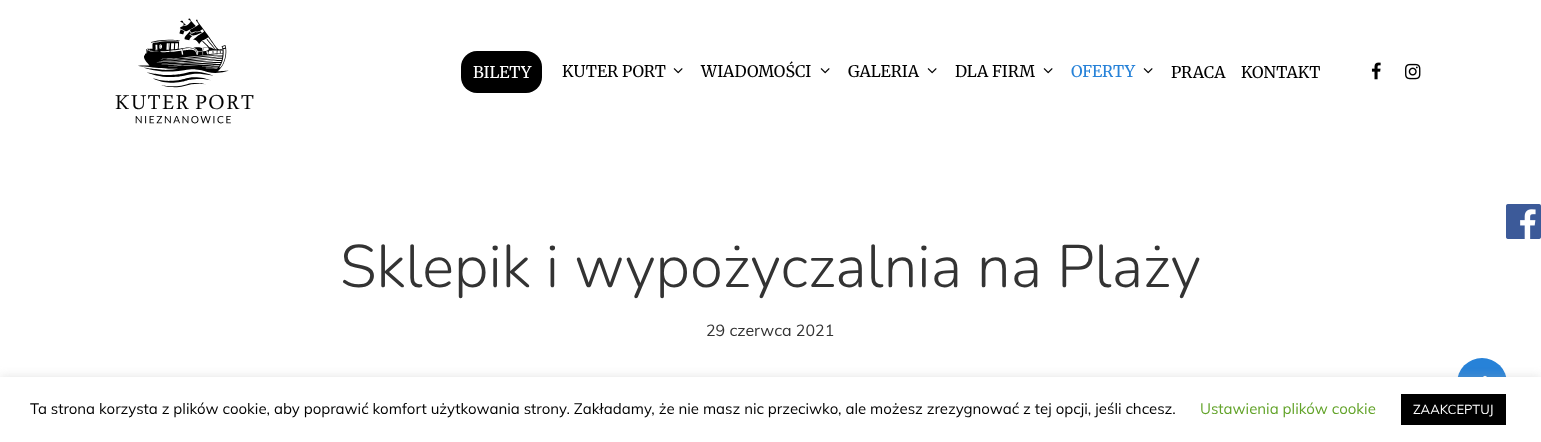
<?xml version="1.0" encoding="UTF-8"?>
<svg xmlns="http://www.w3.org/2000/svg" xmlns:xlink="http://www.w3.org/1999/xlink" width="1541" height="442">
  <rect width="100%" height="100%" fill="#ffffff" />
  <image x="115" y="18" width="139" height="106" xlink:href="image1.png" />
  <rect x="461" y="51" width="81" height="42" rx="16" fill="#000000" />
  <image x="673" y="68" width="10" height="6" xlink:href="image2.png" />
  <image x="820" y="68" width="10" height="6" xlink:href="image2.png" />
  <image x="927" y="68" width="10" height="6" xlink:href="image2.png" />
  <image x="1043" y="68" width="10" height="6" xlink:href="image2.png" />
  <image x="1143" y="68" width="10" height="6" xlink:href="image2.png" />
  <image x="1371" y="62" width="10" height="18" xlink:href="image3.png" />
  <image x="1405" y="63" width="16" height="17" xlink:href="image4.png" />
  <circle cx="1482" cy="383" r="25" fill="#2782d8" />
  <image x="1483" y="375" width="4" height="2" xlink:href="image5.png" />
  <image x="1506" y="204" width="35" height="35" xlink:href="image6.png" />
  <rect y="376" width="1541" height="65" fill="#acabab" fill-opacity="0.3" filter="blur(5px)" />
  <rect y="377" width="1541" height="65" fill="#ffffff" />
  <rect x="1401" y="394" width="105" height="31" fill="#000000" />
  <text x="473" y="78" style="font-family: Merriweather; font-size: 16px; fill: #ffffff">BILETY</text>
  <text x="562" y="77" style="font-family: Merriweather; font-size: 16px; fill: #000000">KUTER PORT</text>
  <text x="701" y="77" style="font-family: Merriweather; font-size: 16px; fill: #000000">WIADOMOŚCI</text>
  <text x="848" y="77" style="font-family: Merriweather; font-size: 16px; fill: #000000">GALERIA</text>
  <text x="955" y="77" style="font-family: Merriweather; font-size: 16px; fill: #000000">DLA FIRM</text>
  <text x="1071" y="77" style="font-family: Merriweather; font-size: 16px; fill: #2782d8">OFERTY</text>
  <text x="1171" y="78" style="font-family: Merriweather; font-size: 16px; fill: #000000">PRACA</text>
  <text x="1241" y="78" style="font-family: Merriweather; font-size: 16px; fill: #000000">KONTAKT</text>
  <text x="340" y="287" style="font-family: Nunito; font-size: 60px; font-weight: 300; fill: #333333">Sklepik i wypożyczalnia na Plaży</text>
  <text x="706" y="336" style="font-family: Muli; font-size: 16px; fill: #333333">29 czerwca 2021</text>
  <text x="30" y="414" style="font-family: Muli; font-size: 15px; fill: #000000">Ta strona korzysta z plików cookie, aby poprawić komfort użytkowania strony. Zakładamy, że nie masz nic przeciwko, ale możesz zrezygnować z tej opcji, jeśli chcesz.</text>
  <text x="1200" y="414" style="font-family: Muli; font-size: 15px; fill: #62a329">Ustawienia plików cookie</text>
  <text x="1413" y="414" style="font-family: Muli; font-size: 13px; fill: #ffffff">ZAAKCEPTUJ</text>
</svg>
